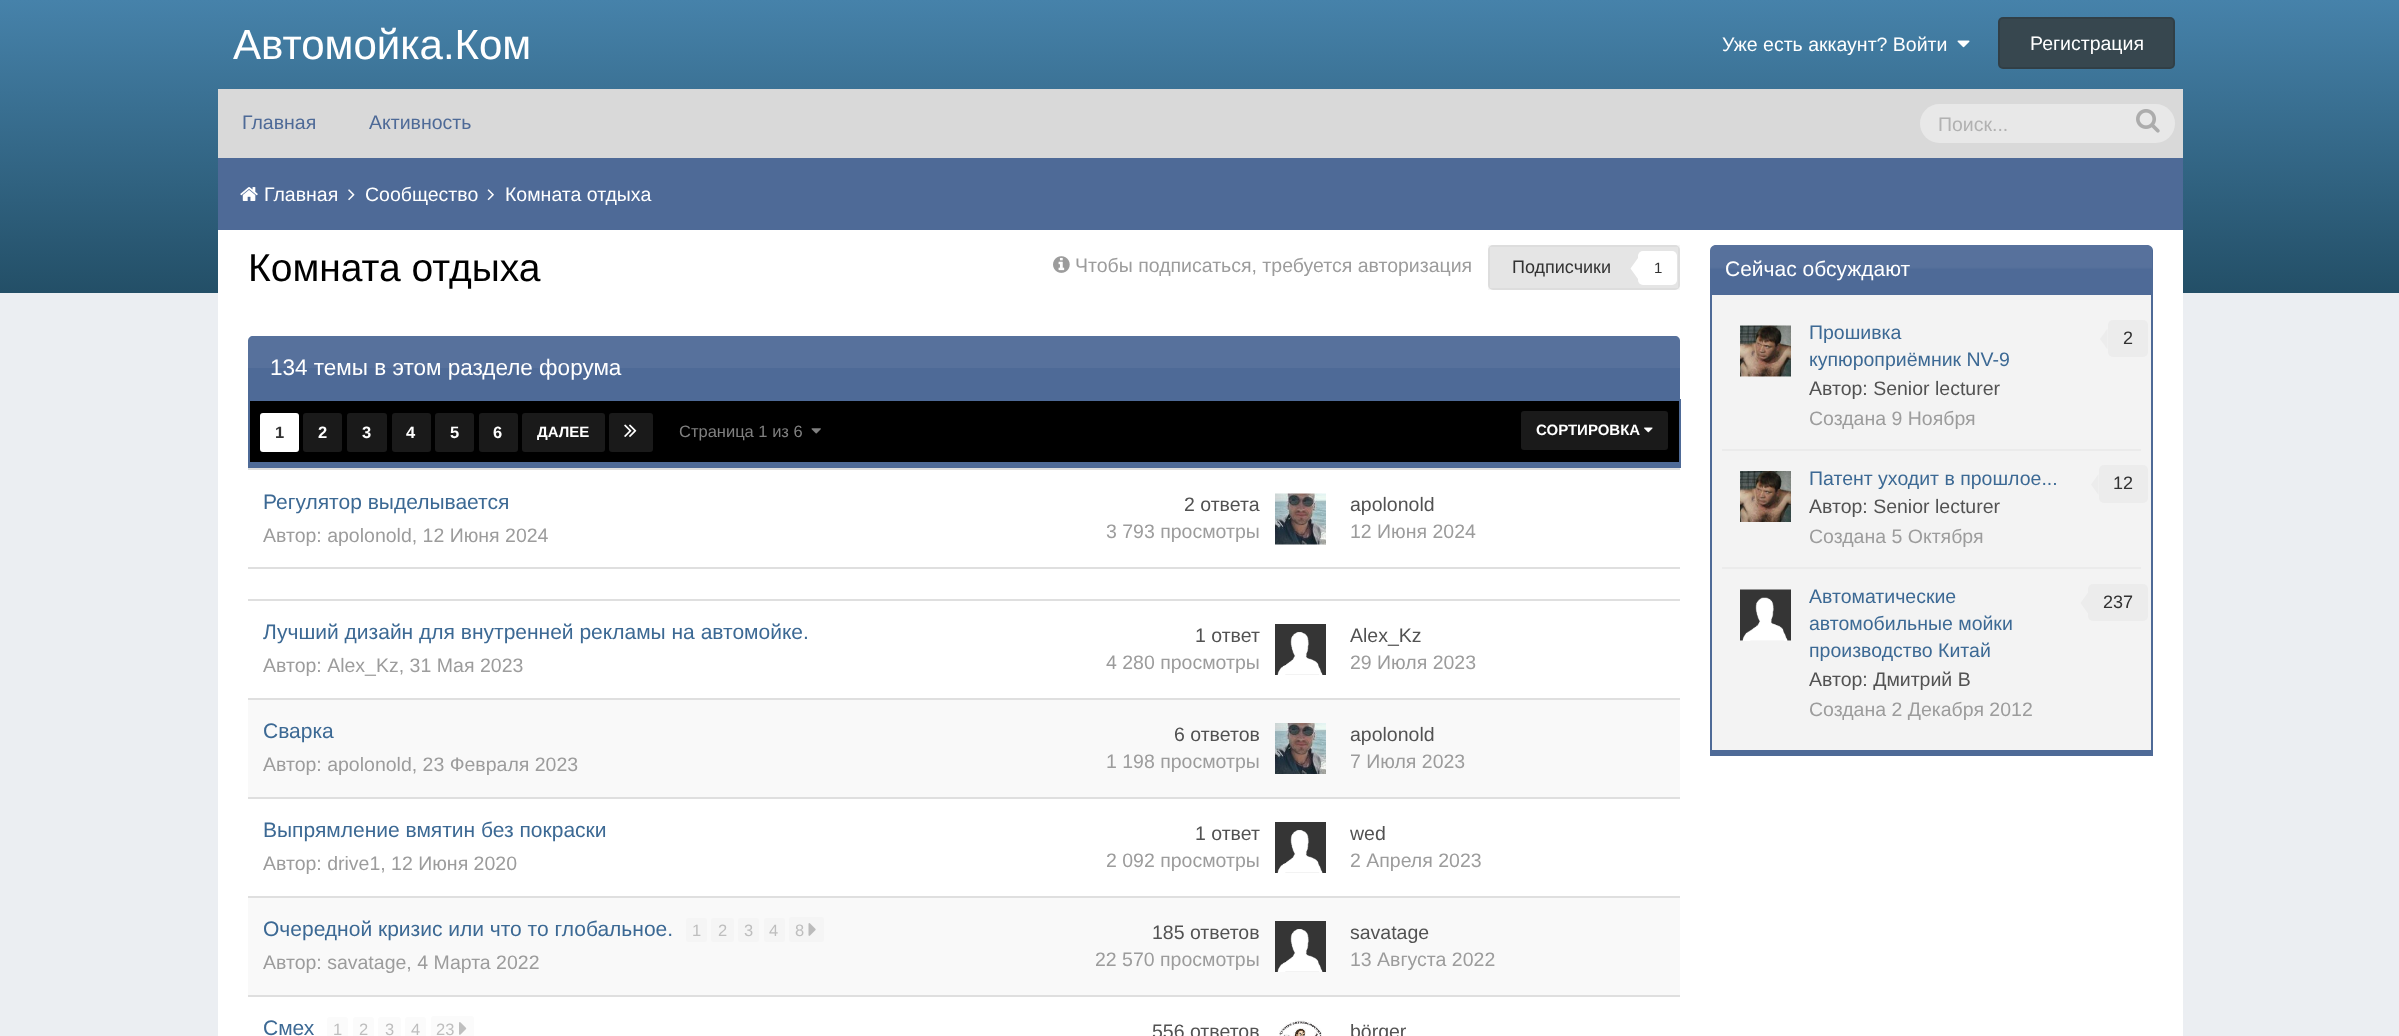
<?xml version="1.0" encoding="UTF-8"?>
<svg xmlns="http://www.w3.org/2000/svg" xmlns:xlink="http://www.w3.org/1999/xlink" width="2399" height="1036">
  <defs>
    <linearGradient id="g1" gradientUnits="userSpaceOnUse" x1="1200" y1="0" x2="1200" y2="293"><stop offset="0" stop-color="#4682aa" /><stop offset="1" stop-color="#234f67" /></linearGradient>
  </defs>
  <rect width="100%" height="100%" fill="#ebeef2" />
  <rect width="2399" height="293" fill="url(#g1)" />
  <image x="1957" y="40" width="13" height="8" xlink:href="image1.png" />
  <rect x="1998" y="17" width="177" height="52" rx="5" fill="#37474f" />
  <rect x="1999" y="18" width="175" height="50" rx="4" fill="none" stroke="#000000" stroke-opacity="0.1" stroke-width="2" />
  <rect x="218" y="89" width="1965" height="69" fill="#d9d9d9" />
  <rect x="1920" y="104" width="255" height="39" rx="19.5" fill="#e8e8e8" />
  <image x="2136" y="109" width="24" height="24" xlink:href="image2.png" />
  <rect x="218" y="230" width="1965" height="806" fill="#ffffff" />
  <rect x="218" y="158" width="1965" height="72" fill="#4e6a97" />
  <image x="240" y="187" width="18" height="14" xlink:href="image3.png" />
  <image x="348" y="189" width="7" height="12" xlink:href="image4.png" />
  <image x="487" y="189" width="7" height="12" xlink:href="image5.png" />
  <image x="1053" y="256" width="17" height="17" xlink:href="image6.png" />
  <rect x="1488" y="245" width="192" height="45" rx="5" fill="#e5e5e5" />
  <rect x="1489" y="246" width="190" height="43" fill="none" stroke="#000000" stroke-opacity="0.03" stroke-width="2" />
  <rect x="1638" y="251" width="39" height="34" rx="5" fill="#ffffff" />
  <path d="M 1638 258 v 21 l -7.5 -10.5 z" fill="#ffffff" />
  <path d="M 253 336 h 1422 c 3 0 5 2 5 5 v 58 h -1432 v -58 c 0 -3 2 -5 5 -5 z" fill="#4e6a97" />
  <rect x="248" y="336" width="1432" height="32" fill="#ffffff" fill-opacity="0.05" />
  <rect x="250" y="401" width="1429" height="61" fill="#000000" />
  <rect x="248" y="399" width="1432" height="2" fill="#4e6a97" />
  <rect x="1679" y="399" width="2" height="69" fill="#4e6a97" />
  <rect x="248" y="462" width="1432" height="6" fill="#4e6a97" />
  <rect x="248" y="399" width="2" height="69" fill="#4e6a97" />
  <rect x="260" y="413" width="39" height="39" rx="3" fill="#ffffff" />
  <rect x="303" y="413" width="39" height="39" rx="3" fill="#1a1a1a" />
  <rect x="347" y="413" width="40" height="39" rx="3" fill="#1a1a1a" />
  <rect x="392" y="413" width="39" height="39" rx="3" fill="#1a1a1a" />
  <rect x="435" y="413" width="39" height="39" rx="3" fill="#1a1a1a" />
  <rect x="479" y="413" width="39" height="39" rx="3" fill="#1a1a1a" />
  <rect x="522" y="413" width="83" height="39" rx="3" fill="#1a1a1a" />
  <rect x="609" y="413" width="44" height="39" rx="3" fill="#1a1a1a" />
  <image x="624" y="424" width="13" height="13" xlink:href="image7.png" />
  <image x="811" y="428" width="10" height="6" xlink:href="image8.png" />
  <rect x="1521" y="411" width="147" height="39" rx="3" fill="#1a1a1a" />
  <image x="1644" y="427" width="9" height="6" xlink:href="image9.png" />
  <rect x="248" y="468" width="1432" height="2" fill="#dfdfdf" />
  <image x="1275" y="493" width="51" height="52" xlink:href="image10.png" />
  <rect x="248" y="567" width="1432" height="2" fill="#dfdfdf" />
  <rect x="248" y="599" width="1432" height="2" fill="#dfdfdf" />
  <image x="1275" y="624" width="51" height="51" xlink:href="image11.png" />
  <rect x="248" y="700" width="1432" height="97" fill="#f9f9f9" />
  <rect x="248" y="698" width="1432" height="2" fill="#dfdfdf" />
  <image x="1275" y="723" width="51" height="51" xlink:href="image12.png" />
  <rect x="248" y="797" width="1432" height="2" fill="#dfdfdf" />
  <image x="1275" y="822" width="51" height="51" xlink:href="image11.png" />
  <rect x="248" y="898" width="1432" height="97" fill="#f9f9f9" />
  <rect x="248" y="896" width="1432" height="2" fill="#dfdfdf" />
  <rect x="686" y="918" width="21" height="24" rx="3" fill="#f5f5f5" />
  <rect x="711" y="918" width="23" height="24" rx="3" fill="#f5f5f5" />
  <rect x="738" y="918" width="21" height="24" rx="3" fill="#f5f5f5" />
  <rect x="764" y="918" width="21" height="24" rx="3" fill="#f5f5f5" />
  <rect x="789" y="917" width="35" height="25" rx="3" fill="#f5f5f5" />
  <image x="808" y="923" width="8" height="13" xlink:href="image13.png" />
  <image x="1275" y="921" width="51" height="51" xlink:href="image14.png" />
  <rect x="248" y="995" width="1432" height="2" fill="#dfdfdf" />
  <rect x="327" y="1017" width="21" height="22" rx="3" fill="#fbfbfb" />
  <rect x="353" y="1017" width="21" height="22" rx="3" fill="#fbfbfb" />
  <rect x="378" y="1017" width="23" height="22" rx="3" fill="#fbfbfb" />
  <rect x="405" y="1017" width="21" height="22" rx="3" fill="#fbfbfb" />
  <rect x="431" y="1016" width="43" height="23" rx="3" fill="#fbfbfb" />
  <image x="459" y="1022" width="8" height="13" xlink:href="image15.png" />
  <image x="1279" y="1020" width="43" height="16" xlink:href="image16.png" />
  <path d="M 1716 245 h 431 c 3.5 0 6 2.5 6 6 v 42 h -443 v -42 c 0 -3.5 2.5 -6 6 -6 z" fill="#4e6a97" />
  <image x="1710" y="245" width="442" height="24" xlink:href="image17.png" />
  <rect x="1712" y="295" width="439" height="455" fill="#f3f3f3" />
  <rect x="1710" y="293" width="443" height="2" fill="#4e6a97" />
  <rect x="2151" y="293" width="2" height="463" fill="#4e6a97" />
  <rect x="1710" y="750" width="443" height="6" fill="#4e6a97" />
  <rect x="1710" y="293" width="2" height="463" fill="#4e6a97" />
  <rect x="1722" y="449" width="419" height="2" fill="#ebebeb" />
  <rect x="1740" y="326" width="51" height="51" rx="3" fill="#ffffff" />
  <image x="1740" y="325" width="51" height="52" xlink:href="image18.png" />
  <rect x="2108" y="320" width="40" height="37" rx="5" fill="#ececec" />
  <path d="M 2107.5 328.5 v 21 l -7.5 -10.5 z" fill="#ececec" />
  <rect x="1722" y="567" width="419" height="2" fill="#ebebeb" />
  <image x="1740" y="471" width="51" height="51" xlink:href="image19.png" />
  <rect x="2099" y="465" width="49" height="38" rx="5" fill="#ececec" />
  <path d="M 2098.5 474 v 21 l -7.5 -10.5 z" fill="#ececec" />
  <rect x="1740" y="590" width="51" height="51" rx="3" fill="#ffffff" />
  <image x="1740" y="589" width="51" height="52" xlink:href="image20.png" />
  <rect x="2088" y="584" width="60" height="37" rx="5" fill="#ececec" />
  <path d="M 2088 592.5 v 21 l -7.5 -10.5 z" fill="#ececec" />
  <text x="233" y="59" style="font-family: Liberation Sans; font-size: 42px; fill: #ffffff">Автомойка.Ком</text>
  <text x="1722" y="51" style="font-family: Liberation Sans; font-size: 19.5px; fill: #ffffff">Уже есть аккаунт? Войти</text>
  <text x="2030" y="50" style="font-family: Liberation Sans; font-size: 19.5px; fill: #ffffff">Регистрация</text>
  <text x="242" y="129" style="font-family: Liberation Sans; font-size: 19.5px; fill: #4e6a97">Главная</text>
  <text x="369" y="129" style="font-family: Liberation Sans; font-size: 19.5px; fill: #4e6a97">Активность</text>
  <text x="1938" y="131" style="font-family: Liberation Sans; font-size: 19.5px; fill: #b1b1b1">Поиск...</text>
  <text x="264" y="201" style="font-family: Liberation Sans; font-size: 19.5px; fill: #ffffff">Главная</text>
  <text x="365" y="201" style="font-family: Liberation Sans; font-size: 19.5px; fill: #ffffff">Сообщество</text>
  <text x="505" y="201" style="font-family: Liberation Sans; font-size: 19.5px; fill: #ffffff">Комната отдыха</text>
  <text x="248" y="281" style="font-family: Liberation Sans; font-size: 39px; fill: #000000">Комната отдыха</text>
  <text x="1075" y="272" style="font-family: Liberation Sans; font-size: 19.5px; fill: #9c9c9c">Чтобы подписаться, требуется авторизация</text>
  <text x="1512" y="273" style="font-family: Liberation Sans; font-size: 18px; fill: #323232">Подписчики</text>
  <text x="1654" y="273" style="font-family: Liberation Sans; font-size: 15px; fill: #323232">1</text>
  <text x="270" y="375" style="font-family: Liberation Sans; font-size: 22.5px; fill: #ffffff">134 темы в этом разделе форума</text>
  <text x="275" y="438" style="font-family: Liberation Sans; font-size: 16.5px; font-weight: bold; fill: #323232">1</text>
  <text x="318" y="438" style="font-family: Liberation Sans; font-size: 16.5px; font-weight: bold; fill: #ffffff">2</text>
  <text x="362" y="438" style="font-family: Liberation Sans; font-size: 16.5px; font-weight: bold; fill: #ffffff">3</text>
  <text x="406" y="438" style="font-family: Liberation Sans; font-size: 16.5px; font-weight: bold; fill: #ffffff">4</text>
  <text x="450" y="438" style="font-family: Liberation Sans; font-size: 16.5px; font-weight: bold; fill: #ffffff">5</text>
  <text x="493" y="438" style="font-family: Liberation Sans; font-size: 16.5px; font-weight: bold; fill: #ffffff">6</text>
  <text x="537" y="437" style="font-family: Liberation Sans; font-size: 15px; font-weight: bold; fill: #ffffff">ДАЛЕЕ</text>
  <text x="679" y="437" style="font-family: Liberation Sans; font-size: 16.5px; fill: #808080">Страница 1 из 6</text>
  <text x="1536" y="435" style="font-family: Liberation Sans; font-size: 15px; font-weight: bold; fill: #ffffff">СОРТИРОВКА</text>
  <text x="263" y="509" style="font-family: Liberation Sans; font-size: 21px; fill: #3c6994">Регулятор выделывается</text>
  <text x="263" y="542" style="font-family: Liberation Sans; font-size: 19.5px; fill: #9c9c9c">Автор: apolonold, 12 Июня 2024</text>
  <text x="1184" y="511" style="font-family: Liberation Sans; font-size: 19.5px; fill: #525252">2 ответа</text>
  <text x="1106" y="538" style="font-family: Liberation Sans; font-size: 19.5px; fill: #9c9c9c">3 793 просмотры</text>
  <text x="1350" y="511" style="font-family: Liberation Sans; font-size: 19.5px; fill: #525252">apolonold</text>
  <text x="1350" y="538" style="font-family: Liberation Sans; font-size: 19.5px; fill: #9c9c9c">12 Июня 2024</text>
  <text x="263" y="639" style="font-family: Liberation Sans; font-size: 21px; fill: #3c6994">Лучший дизайн для внутренней рекламы на автомойке.</text>
  <text x="263" y="672" style="font-family: Liberation Sans; font-size: 19.5px; fill: #9c9c9c">Автор: Alex_Kz, 31 Мая 2023</text>
  <text x="1195" y="642" style="font-family: Liberation Sans; font-size: 19.5px; fill: #525252">1 ответ</text>
  <text x="1106" y="669" style="font-family: Liberation Sans; font-size: 19.5px; fill: #9c9c9c">4 280 просмотры</text>
  <text x="1350" y="642" style="font-family: Liberation Sans; font-size: 19.5px; fill: #525252">Alex_Kz</text>
  <text x="1350" y="669" style="font-family: Liberation Sans; font-size: 19.5px; fill: #9c9c9c">29 Июля 2023</text>
  <text x="263" y="738" style="font-family: Liberation Sans; font-size: 21px; fill: #3c6994">Сварка</text>
  <text x="263" y="771" style="font-family: Liberation Sans; font-size: 19.5px; fill: #9c9c9c">Автор: apolonold, 23 Февраля 2023</text>
  <text x="1174" y="741" style="font-family: Liberation Sans; font-size: 19.5px; fill: #525252">6 ответов</text>
  <text x="1106" y="768" style="font-family: Liberation Sans; font-size: 19.5px; fill: #9c9c9c">1 198 просмотры</text>
  <text x="1350" y="741" style="font-family: Liberation Sans; font-size: 19.5px; fill: #525252">apolonold</text>
  <text x="1350" y="768" style="font-family: Liberation Sans; font-size: 19.5px; fill: #9c9c9c">7 Июля 2023</text>
  <text x="263" y="837" style="font-family: Liberation Sans; font-size: 21px; fill: #3c6994">Выпрямление вмятин без покраски</text>
  <text x="263" y="870" style="font-family: Liberation Sans; font-size: 19.5px; fill: #9c9c9c">Автор: drive1, 12 Июня 2020</text>
  <text x="1195" y="840" style="font-family: Liberation Sans; font-size: 19.5px; fill: #525252">1 ответ</text>
  <text x="1106" y="867" style="font-family: Liberation Sans; font-size: 19.5px; fill: #9c9c9c">2 092 просмотры</text>
  <text x="1350" y="840" style="font-family: Liberation Sans; font-size: 19.5px; fill: #525252">wed</text>
  <text x="1350" y="867" style="font-family: Liberation Sans; font-size: 19.5px; fill: #9c9c9c">2 Апреля 2023</text>
  <text x="263" y="936" style="font-family: Liberation Sans; font-size: 21px; fill: #3c6994">Очередной кризис или что то глобальное.</text>
  <text x="692" y="936" style="font-family: Liberation Sans; font-size: 16.5px; fill: #bebebe">1</text>
  <text x="718" y="936" style="font-family: Liberation Sans; font-size: 16.5px; fill: #bebebe">2</text>
  <text x="744" y="936" style="font-family: Liberation Sans; font-size: 16.5px; fill: #bebebe">3</text>
  <text x="769" y="936" style="font-family: Liberation Sans; font-size: 16.5px; fill: #bebebe">4</text>
  <text x="795" y="936" style="font-family: Liberation Sans; font-size: 16.5px; fill: #bebebe">8</text>
  <text x="263" y="969" style="font-family: Liberation Sans; font-size: 19.5px; fill: #9c9c9c">Автор: savatage, 4 Марта 2022</text>
  <text x="1152" y="939" style="font-family: Liberation Sans; font-size: 19.5px; fill: #525252">185 ответов</text>
  <text x="1095" y="966" style="font-family: Liberation Sans; font-size: 19.5px; fill: #9c9c9c">22 570 просмотры</text>
  <text x="1350" y="939" style="font-family: Liberation Sans; font-size: 19.5px; fill: #525252">savatage</text>
  <text x="1350" y="966" style="font-family: Liberation Sans; font-size: 19.5px; fill: #9c9c9c">13 Августа 2022</text>
  <text x="263" y="1035" style="font-family: Liberation Sans; font-size: 21px; fill: #3c6994">Смех</text>
  <text x="333" y="1035" style="font-family: Liberation Sans; font-size: 16.5px; fill: #bebebe">1</text>
  <text x="359" y="1035" style="font-family: Liberation Sans; font-size: 16.5px; fill: #bebebe">2</text>
  <text x="385" y="1035" style="font-family: Liberation Sans; font-size: 16.5px; fill: #bebebe">3</text>
  <text x="411" y="1035" style="font-family: Liberation Sans; font-size: 16.5px; fill: #bebebe">4</text>
  <text x="436" y="1035" style="font-family: Liberation Sans; font-size: 16.5px; fill: #bebebe">23</text>
  <text x="1152" y="1038" style="font-family: Liberation Sans; font-size: 19.5px; fill: #525252">556 ответов</text>
  <text x="1350" y="1038" style="font-family: Liberation Sans; font-size: 19.5px; fill: #525252">börger</text>
  <text x="1725" y="276" style="font-family: Liberation Sans; font-size: 21px; fill: #ffffff">Сейчас обсуждают</text>
  <text x="1809" y="339" style="font-family: Liberation Sans; font-size: 19.5px; fill: #3c6994">Прошивка</text>
  <text x="1809" y="366" style="font-family: Liberation Sans; font-size: 19.5px; fill: #3c6994">купюроприёмник NV-9</text>
  <text x="2123" y="344" style="font-family: Liberation Sans; font-size: 18px; fill: #323232">2</text>
  <text x="1809" y="395" style="font-family: Liberation Sans; font-size: 19.5px; fill: #525252">Автор: Senior lecturer</text>
  <text x="1809" y="425" style="font-family: Liberation Sans; font-size: 19.5px; fill: #9c9c9c">Создана 9 Ноября</text>
  <text x="1809" y="485" style="font-family: Liberation Sans; font-size: 19.5px; fill: #3c6994">Патент уходит в прошлое...</text>
  <text x="2113" y="489" style="font-family: Liberation Sans; font-size: 18px; fill: #323232">12</text>
  <text x="1809" y="513" style="font-family: Liberation Sans; font-size: 19.5px; fill: #525252">Автор: Senior lecturer</text>
  <text x="1809" y="543" style="font-family: Liberation Sans; font-size: 19.5px; fill: #9c9c9c">Создана 5 Октября</text>
  <text x="1809" y="603" style="font-family: Liberation Sans; font-size: 19.5px; fill: #3c6994">Автоматические</text>
  <text x="1809" y="630" style="font-family: Liberation Sans; font-size: 19.5px; fill: #3c6994">автомобильные мойки</text>
  <text x="1809" y="657" style="font-family: Liberation Sans; font-size: 19.5px; fill: #3c6994">производство Китай</text>
  <text x="2103" y="608" style="font-family: Liberation Sans; font-size: 18px; fill: #323232">237</text>
  <text x="1809" y="686" style="font-family: Liberation Sans; font-size: 19.5px; fill: #525252">Автор: Дмитрий В</text>
  <text x="1809" y="716" style="font-family: Liberation Sans; font-size: 19.5px; fill: #9c9c9c">Создана 2 Декабря 2012</text>
</svg>
